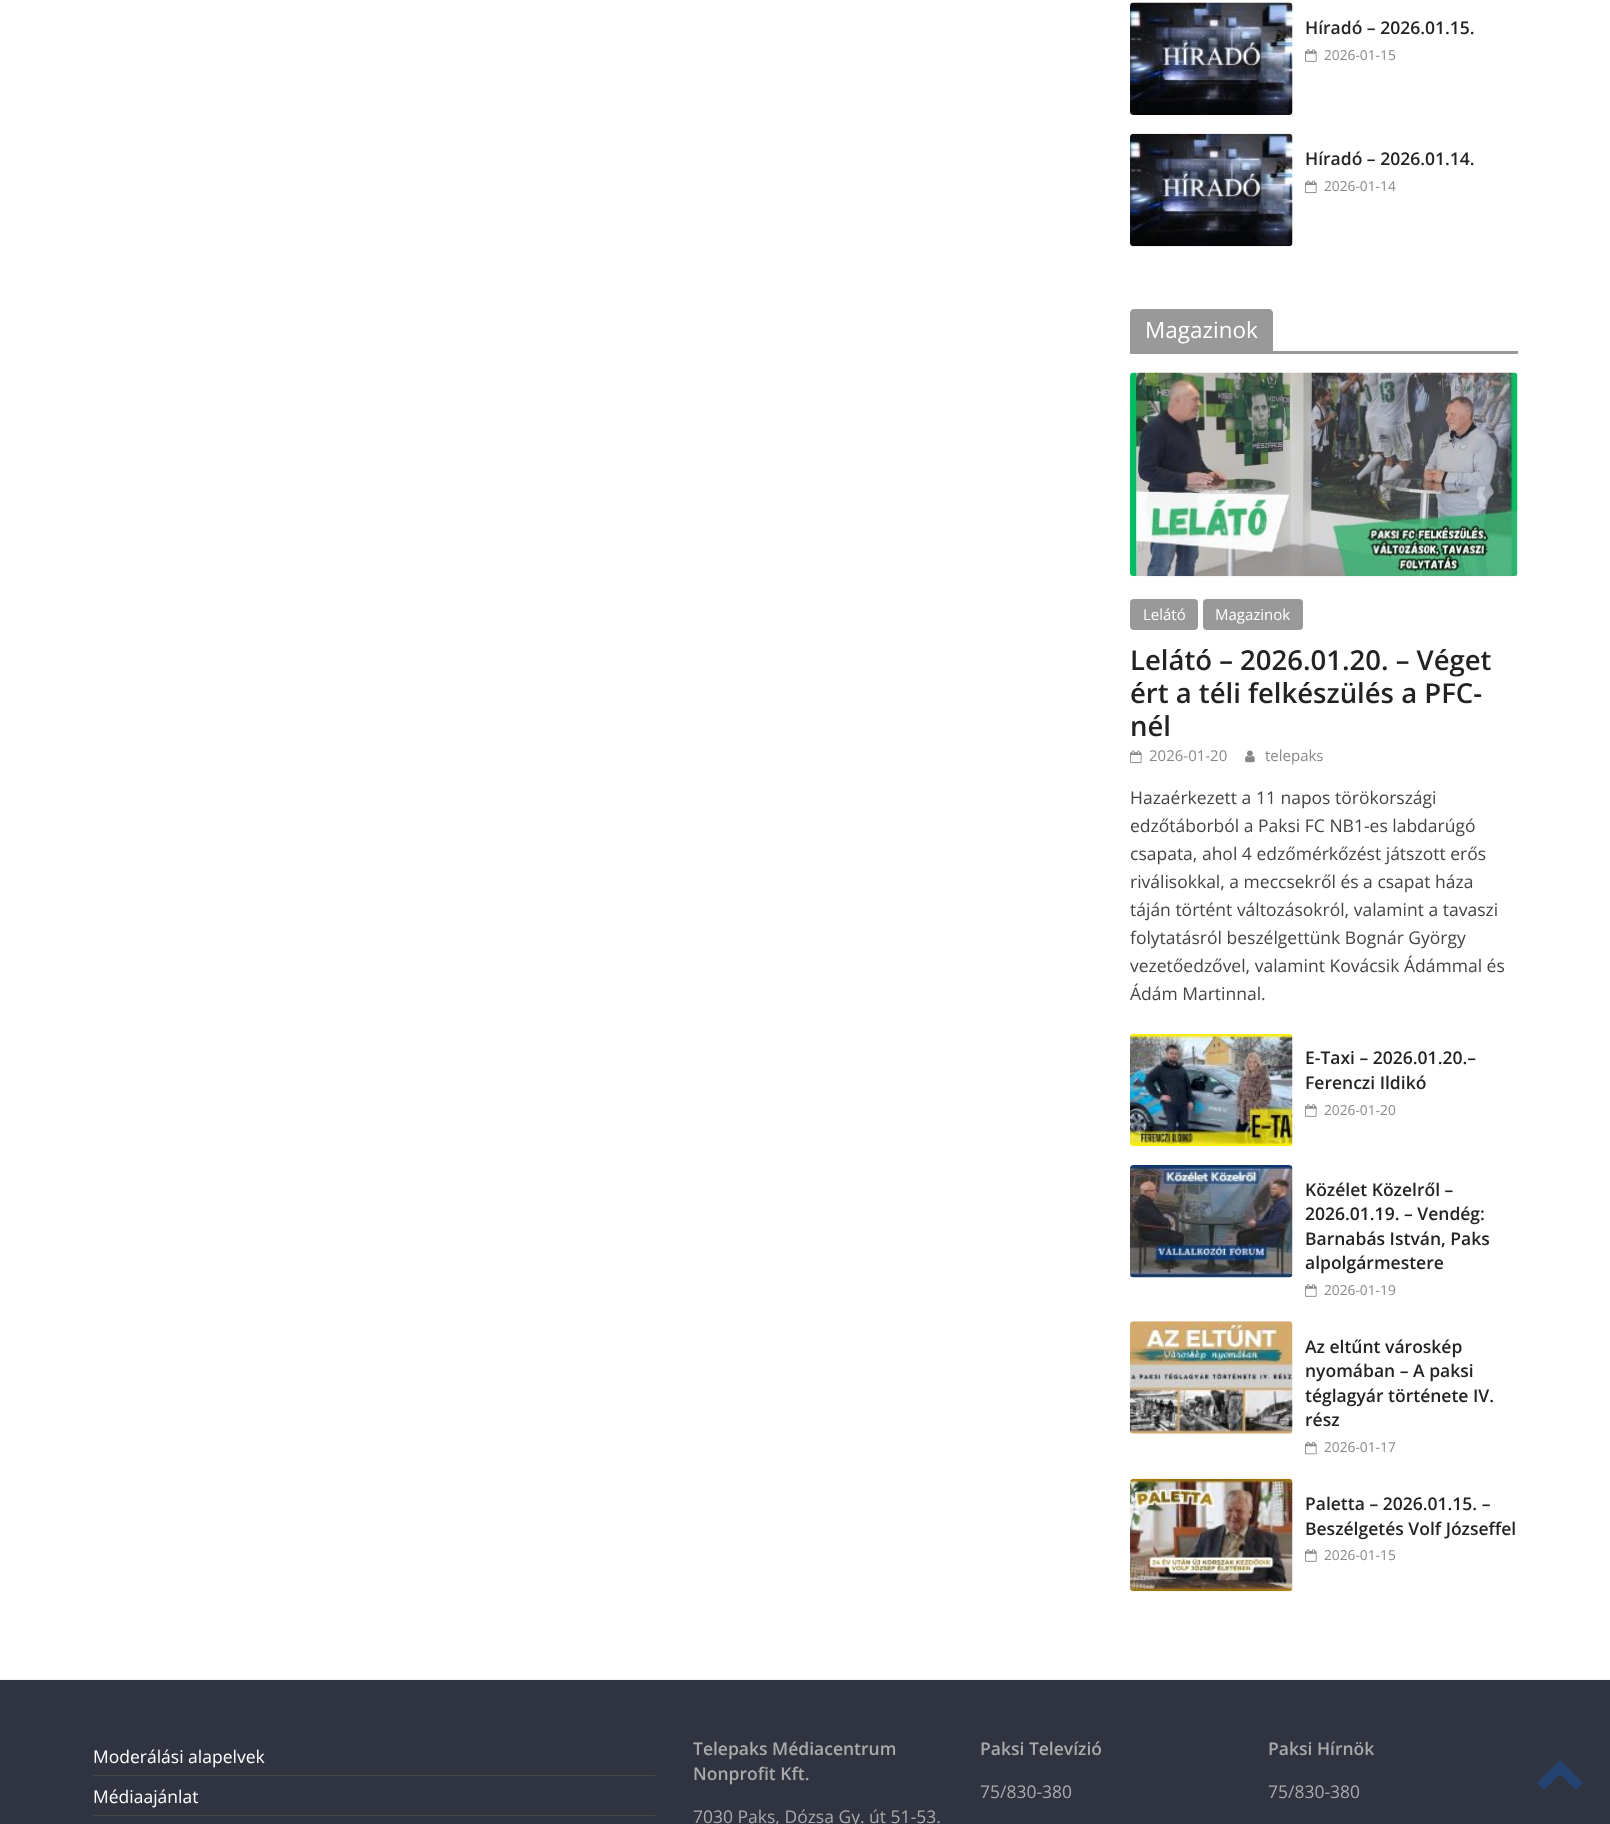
<?xml version="1.0" encoding="UTF-8"?>
<svg xmlns="http://www.w3.org/2000/svg" xmlns:xlink="http://www.w3.org/1999/xlink" width="1610" height="1824">
  <rect width="100%" height="100%" fill="#ffffff" />
  <image x="1130" y="2" width="163" height="113" xlink:href="image1.png" />
  <image x="1305" y="49" width="12" height="13" xlink:href="image2.png" />
  <image x="1130" y="133" width="163" height="114" xlink:href="image3.png" />
  <image x="1305" y="180" width="12" height="14" xlink:href="image4.png" />
  <rect x="1130" y="351" width="388" height="3" fill="#999999" />
  <path d="M 1134 309 h 135 c 2 0 4 2 4 4 v 38 h -143 v -38 c 0 -2 2 -4 4 -4 z" fill="#999999" />
  <image x="1130" y="372" width="388" height="205" xlink:href="image5.png" />
  <rect x="1130" y="599" width="68" height="31" rx="4" fill="#999999" />
  <rect x="1203" y="599" width="100" height="31" rx="4" fill="#999999" />
  <image x="1130" y="750" width="12" height="14" xlink:href="image4.png" />
  <image x="1245" y="750" width="10" height="13" xlink:href="image6.png" />
  <image x="1130" y="1033" width="163" height="114" xlink:href="image7.png" />
  <image x="1305" y="1104" width="12" height="13" xlink:href="image2.png" />
  <image x="1130" y="1165" width="163" height="113" xlink:href="image8.png" />
  <image x="1305" y="1284" width="12" height="13" xlink:href="image2.png" />
  <image x="1130" y="1321" width="163" height="113" xlink:href="image9.png" />
  <image x="1305" y="1441" width="12" height="14" xlink:href="image10.png" />
  <image x="1130" y="1478" width="163" height="114" xlink:href="image11.png" />
  <image x="1305" y="1549" width="12" height="13" xlink:href="image2.png" />
  <rect y="1680" width="1610" height="144" fill="#303440" />
  <rect y="1679" width="1610" height="1" fill="#f2f2f2" />
  <rect x="93" y="1775" width="562" height="1" fill="#444444" />
  <rect x="93" y="1815" width="562" height="1" fill="#444444" />
  <image x="1537" y="1760" width="46" height="30" xlink:href="image12.png" />
  <text x="1305" y="34" style="font-family: Open Sans; font-size: 17.5px; font-weight: 600; fill: #232323">Híradó – 2026.01.15.</text>
  <text x="1324" y="60" style="font-family: Open Sans; font-size: 13.75px; fill: #888888">2026-01-15</text>
  <text x="1305" y="165" style="font-family: Open Sans; font-size: 17.5px; font-weight: 600; fill: #232323">Híradó – 2026.01.14.</text>
  <text x="1324" y="191" style="font-family: Open Sans; font-size: 13.75px; fill: #888888">2026-01-14</text>
  <text x="1145" y="338" style="font-family: Open Sans; font-size: 22.5px; fill: #ffffff">Magazinok</text>
  <text x="1143" y="620" style="font-family: Open Sans; font-size: 15px; fill: #ffffff">Lelátó</text>
  <text x="1215" y="620" style="font-family: Open Sans; font-size: 15px; fill: #ffffff">Magazinok</text>
  <text x="1130" y="670" style="font-family: Open Sans; font-size: 27.5px; font-weight: 600; fill: #232323">Lelátó – 2026.01.20. – Véget</text>
  <text x="1130" y="703" style="font-family: Open Sans; font-size: 27.5px; font-weight: 600; fill: #232323">ért a téli felkészülés a PFC-</text>
  <text x="1130" y="736" style="font-family: Open Sans; font-size: 27.5px; font-weight: 600; fill: #232323">nél</text>
  <text x="1149" y="761" style="font-family: Open Sans; font-size: 15px; fill: #888888">2026-01-20</text>
  <text x="1265" y="761" style="font-family: Open Sans; font-size: 15px; fill: #888888">telepaks</text>
  <text x="1130" y="804" style="font-family: Open Sans; font-size: 17.5px; fill: #444444">Hazaérkezett a 11 napos törökországi</text>
  <text x="1130" y="832" style="font-family: Open Sans; font-size: 17.5px; fill: #444444">edzőtáborból a Paksi FC NB1-es labdarúgó</text>
  <text x="1130" y="860" style="font-family: Open Sans; font-size: 17.5px; fill: #444444">csapata, ahol 4 edzőmérkőzést játszott erős</text>
  <text x="1130" y="888" style="font-family: Open Sans; font-size: 17.5px; fill: #444444">riválisokkal, a meccsekről és a csapat háza</text>
  <text x="1130" y="916" style="font-family: Open Sans; font-size: 17.5px; fill: #444444">táján történt változásokról, valamint a tavaszi</text>
  <text x="1130" y="944" style="font-family: Open Sans; font-size: 17.5px; fill: #444444">folytatásról beszélgettünk Bognár György</text>
  <text x="1130" y="972" style="font-family: Open Sans; font-size: 17.5px; fill: #444444">vezetőedzővel, valamint Kovácsik Ádámmal és</text>
  <text x="1130" y="1000" style="font-family: Open Sans; font-size: 17.5px; fill: #444444">Ádám Martinnal.</text>
  <text x="1305" y="1064" style="font-family: Open Sans; font-size: 17.5px; font-weight: 600; fill: #232323">E-Taxi – 2026.01.20.–</text>
  <text x="1305" y="1089" style="font-family: Open Sans; font-size: 17.5px; font-weight: 600; fill: #232323">Ferenczi Ildikó</text>
  <text x="1324" y="1115" style="font-family: Open Sans; font-size: 13.75px; fill: #888888">2026-01-20</text>
  <text x="1305" y="1196" style="font-family: Open Sans; font-size: 17.5px; font-weight: 600; fill: #232323">Közélet Közelről –</text>
  <text x="1305" y="1220" style="font-family: Open Sans; font-size: 17.5px; font-weight: 600; fill: #232323">2026.01.19. – Vendég:</text>
  <text x="1305" y="1245" style="font-family: Open Sans; font-size: 17.5px; font-weight: 600; fill: #232323">Barnabás István, Paks</text>
  <text x="1305" y="1269" style="font-family: Open Sans; font-size: 17.5px; font-weight: 600; fill: #232323">alpolgármestere</text>
  <text x="1324" y="1295" style="font-family: Open Sans; font-size: 13.75px; fill: #888888">2026-01-19</text>
  <text x="1305" y="1353" style="font-family: Open Sans; font-size: 17.5px; font-weight: 600; fill: #232323">Az eltűnt városkép</text>
  <text x="1305" y="1377" style="font-family: Open Sans; font-size: 17.5px; font-weight: 600; fill: #232323">nyomában – A paksi</text>
  <text x="1305" y="1402" style="font-family: Open Sans; font-size: 17.5px; font-weight: 600; fill: #232323">téglagyár története IV.</text>
  <text x="1305" y="1426" style="font-family: Open Sans; font-size: 17.5px; font-weight: 600; fill: #232323">rész</text>
  <text x="1324" y="1452" style="font-family: Open Sans; font-size: 13.75px; fill: #888888">2026-01-17</text>
  <text x="1305" y="1510" style="font-family: Open Sans; font-size: 17.5px; font-weight: 600; fill: #232323">Paletta – 2026.01.15. –</text>
  <text x="1305" y="1535" style="font-family: Open Sans; font-size: 17.5px; font-weight: 600; fill: #232323">Beszélgetés Volf Józseffel</text>
  <text x="1324" y="1560" style="font-family: Open Sans; font-size: 13.75px; fill: #888888">2026-01-15</text>
  <text x="93" y="1763" style="font-family: Open Sans; font-size: 17.5px; fill: #ffffff">Moderálási alapelvek</text>
  <text x="93" y="1803" style="font-family: Open Sans; font-size: 17.5px; fill: #ffffff">Médiaajánlat</text>
  <text x="693" y="1755" style="font-family: Open Sans; font-size: 17.5px; font-weight: 600; fill: #aaaaaa">Telepaks Médiacentrum</text>
  <text x="693" y="1780" style="font-family: Open Sans; font-size: 17.5px; font-weight: 600; fill: #aaaaaa">Nonprofit Kft.</text>
  <text x="693" y="1823" style="font-family: Open Sans; font-size: 17.5px; fill: #aaaaaa">7030 Paks, Dózsa Gy. út 51-53.</text>
  <text x="980" y="1755" style="font-family: Open Sans; font-size: 17.5px; font-weight: 600; fill: #aaaaaa">Paksi Televízió</text>
  <text x="980" y="1798" style="font-family: Open Sans; font-size: 17.5px; fill: #aaaaaa">75/830-380</text>
  <text x="1268" y="1755" style="font-family: Open Sans; font-size: 17.5px; font-weight: 600; fill: #aaaaaa">Paksi Hírnök</text>
  <text x="1268" y="1798" style="font-family: Open Sans; font-size: 17.5px; fill: #aaaaaa">75/830-380</text>
</svg>
